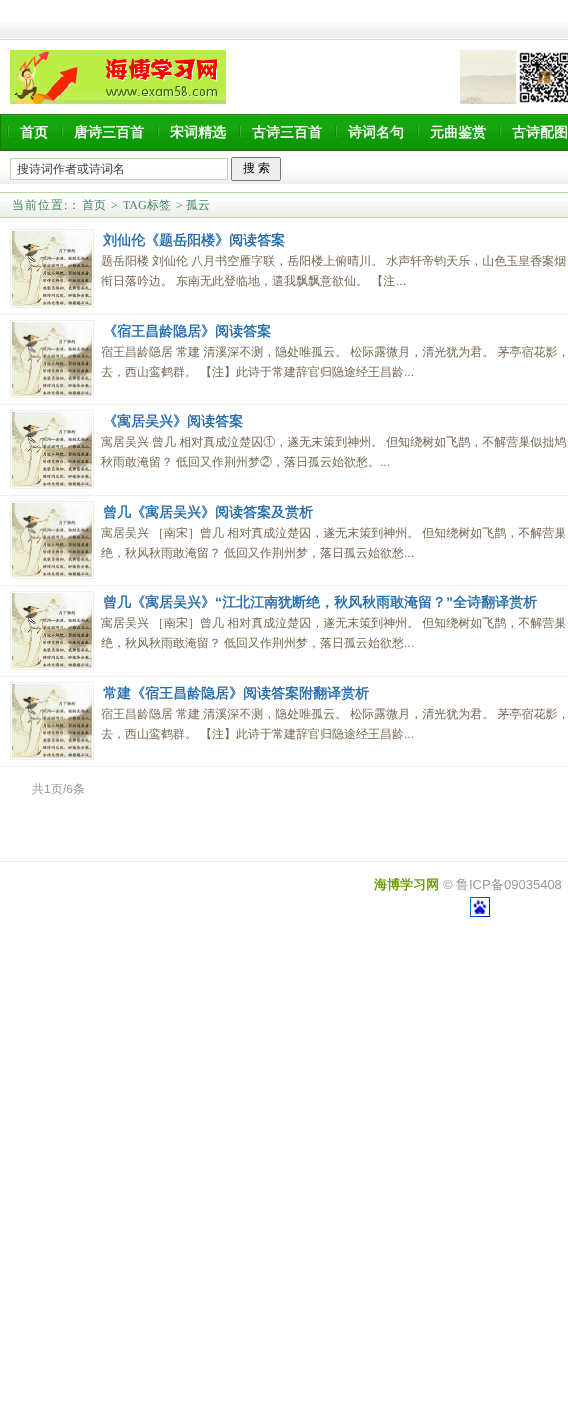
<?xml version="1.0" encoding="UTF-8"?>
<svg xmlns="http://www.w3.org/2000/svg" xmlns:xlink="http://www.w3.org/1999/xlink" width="568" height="1424">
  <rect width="100%" height="100%" fill="#ffffff" />
  <image x="0" y="22" width="568" height="16" xlink:href="image1.png" />
  <rect y="39" width="568" height="1" fill="#dbdbdb" />
  <image x="10" y="50" width="216" height="54" xlink:href="image2.png" />
  <image x="460" y="50" width="108" height="54" xlink:href="image3.png" />
  <image x="0" y="151" width="568" height="33" xlink:href="image4.png" />
  <image x="1" y="115" width="567" height="34" xlink:href="image5.png" />
  <rect y="114" width="568" height="1" fill="#237705" />
  <rect y="149" width="568" height="2" fill="#237705" />
  <rect y="114" width="1" height="37" fill="#237705" />
  <image x="7" y="126" width="2" height="11" xlink:href="image6.png" />
  <image x="61" y="126" width="2" height="11" xlink:href="image6.png" />
  <image x="157" y="126" width="2" height="11" xlink:href="image6.png" />
  <image x="239" y="126" width="2" height="11" xlink:href="image6.png" />
  <image x="335" y="126" width="2" height="11" xlink:href="image6.png" />
  <image x="417" y="126" width="2" height="11" xlink:href="image6.png" />
  <image x="499" y="126" width="2" height="11" xlink:href="image6.png" />
  <rect x="11" y="172" width="216" height="7" fill="#ffffff" />
  <rect x="10.5" y="158.5" width="217" height="21" fill="none" stroke="#badaa1" />
  <rect x="231.5" y="157.5" width="49" height="23" rx="1.5" fill="#efefef" stroke="#767676" />
  <image x="0" y="201" width="568" height="16" xlink:href="image1.png" />
  <rect y="192" width="568" height="1" fill="#badaa1" />
  <rect y="217" width="568" height="1" fill="#badaa1" />
  <rect y="314" width="568" height="1" fill="#eeeeee" />
  <rect x="10.5" y="229.5" width="83" height="78" fill="none" stroke="#eeeeee" />
  <image x="12" y="231" width="80" height="75" xlink:href="image7.png" />
  <rect y="404" width="568" height="1" fill="#eeeeee" />
  <rect x="10.5" y="320.5" width="83" height="77" fill="none" stroke="#eeeeee" />
  <image x="12" y="322" width="80" height="74" xlink:href="image8.png" />
  <rect y="495" width="568" height="1" fill="#eeeeee" />
  <rect x="10.5" y="410.5" width="83" height="78" fill="none" stroke="#eeeeee" />
  <image x="12" y="412" width="80" height="75" xlink:href="image7.png" />
  <rect y="585" width="568" height="1" fill="#eeeeee" />
  <rect x="10.5" y="501.5" width="83" height="77" fill="none" stroke="#eeeeee" />
  <image x="12" y="503" width="80" height="74" xlink:href="image9.png" />
  <rect y="676" width="568" height="1" fill="#eeeeee" />
  <rect x="10.5" y="591.5" width="83" height="78" fill="none" stroke="#eeeeee" />
  <image x="12" y="593" width="80" height="75" xlink:href="image7.png" />
  <rect y="766" width="568" height="1" fill="#eeeeee" />
  <rect x="10.5" y="682.5" width="83" height="77" fill="none" stroke="#eeeeee" />
  <image x="12" y="684" width="80" height="74" xlink:href="image8.png" />
  <rect y="861" width="568" height="1" fill="#e5efd6" />
  <image x="470" y="897" width="20" height="20" xlink:href="image10.png" />
  <text x="20" y="137" style="font-family: WenQuanYi Zen Hei; font-size: 14px; font-weight: bold; fill: #ffffff">首页</text>
  <text x="74" y="137" style="font-family: WenQuanYi Zen Hei; font-size: 14px; font-weight: bold; fill: #ffffff">唐诗三百首</text>
  <text x="170" y="137" style="font-family: WenQuanYi Zen Hei; font-size: 14px; font-weight: bold; fill: #ffffff">宋词精选</text>
  <text x="252" y="137" style="font-family: WenQuanYi Zen Hei; font-size: 14px; font-weight: bold; fill: #ffffff">古诗三百首</text>
  <text x="348" y="137" style="font-family: WenQuanYi Zen Hei; font-size: 14px; font-weight: bold; fill: #ffffff">诗词名句</text>
  <text x="430" y="137" style="font-family: WenQuanYi Zen Hei; font-size: 14px; font-weight: bold; fill: #ffffff">元曲鉴赏</text>
  <text x="512" y="137" style="font-family: WenQuanYi Zen Hei; font-size: 14px; font-weight: bold; fill: #ffffff">古诗配图</text>
  <text x="17" y="173" style="font-family: WenQuanYi Zen Hei; font-size: 12px; font-weight: 500; fill: #444444">搜诗词作者或诗词名</text>
  <text x="243" y="172" word-spacing="-0.5" style="font-family: WenQuanYi Zen Hei; font-size: 12px; font-weight: 500; fill: #000000">搜 索</text>
  <text x="12" y="209" style="font-family: WenQuanYi Zen Hei; font-size: 12px; font-weight: 500; letter-spacing: 1px; fill: #428c5b">当前位置</text>
  <text x="64" y="209" style="font-family: Liberation Serif; font-size: 12px; letter-spacing: 1px; fill: #428c5b">:</text>
  <text x="68" y="209" style="font-family: WenQuanYi Zen Hei; font-size: 12px; font-weight: 500; fill: #428c5b">：</text>
  <text x="82" y="209" style="font-family: WenQuanYi Zen Hei; font-size: 12px; font-weight: 500; fill: #428c5b">首页</text>
  <text x="111" y="209" style="font-family: Liberation Serif; font-size: 12px; fill: #428c5b">&gt;</text>
  <text x="123" y="209" style="font-family: Liberation Serif; font-size: 12px; fill: #428c5b">TAG</text>
  <text x="147" y="209" style="font-family: WenQuanYi Zen Hei; font-size: 12px; font-weight: 500; fill: #428c5b">标签</text>
  <text x="176" y="209" style="font-family: Liberation Serif; font-size: 12px; fill: #428c5b">&gt;</text>
  <text x="186" y="209" style="font-family: WenQuanYi Zen Hei; font-size: 12px; font-weight: 500; fill: #428c5b">孤云</text>
  <text x="103" y="245" style="font-family: WenQuanYi Zen Hei; font-size: 14px; font-weight: bold; fill: #256eb1">刘仙伦《题岳阳楼》阅读答案</text>
  <text x="101" y="265" word-spacing="-0.5" style="font-family: WenQuanYi Zen Hei; font-size: 12px; font-weight: 500; fill: #776955">题岳阳楼 刘仙伦 八月书空雁字联，岳阳楼上俯晴川。 水声轩帝钧天乐，山色玉皇香案烟</text>
  <text x="101" y="285" word-spacing="-0.5" style="font-family: WenQuanYi Zen Hei; font-size: 12px; font-weight: 500; fill: #776955">衔日落吟边。 东南无此登临地，遣我飘飘意欲仙。 【注</text>
  <text x="396" y="285" style="font-family: Liberation Sans; font-size: 12px; fill: #776955">...</text>
  <text x="103" y="336" style="font-family: WenQuanYi Zen Hei; font-size: 14px; font-weight: bold; fill: #256eb1">《宿王昌龄隐居》阅读答案</text>
  <text x="101" y="356" word-spacing="-0.5" style="font-family: WenQuanYi Zen Hei; font-size: 12px; font-weight: 500; fill: #776955">宿王昌龄隐居 常建 清溪深不测，隐处唯孤云。 松际露微月，清光犹为君。 茅亭宿花影，</text>
  <text x="101" y="376" word-spacing="-0.5" style="font-family: WenQuanYi Zen Hei; font-size: 12px; font-weight: 500; fill: #776955">去，西山鸾鹤群。 【注】此诗于常建辞官归隐途经王昌龄</text>
  <text x="404" y="376" style="font-family: Liberation Sans; font-size: 12px; fill: #776955">...</text>
  <text x="103" y="426" style="font-family: WenQuanYi Zen Hei; font-size: 14px; font-weight: bold; fill: #256eb1">《寓居吴兴》阅读答案</text>
  <text x="101" y="446" word-spacing="-0.5" style="font-family: WenQuanYi Zen Hei; font-size: 12px; font-weight: 500; fill: #776955">寓居吴兴 曾几 相对真成泣楚囚①，遂无末策到神州。 但知绕树如飞鹊，不解营巢似拙鸠</text>
  <text x="101" y="466" word-spacing="-0.5" style="font-family: WenQuanYi Zen Hei; font-size: 12px; font-weight: 500; fill: #776955">秋雨敢淹留？ 低回又作荆州梦②，落日孤云始欲愁。</text>
  <text x="380" y="466" style="font-family: Liberation Sans; font-size: 12px; fill: #776955">...</text>
  <text x="103" y="517" style="font-family: WenQuanYi Zen Hei; font-size: 14px; font-weight: bold; fill: #256eb1">曾几《寓居吴兴》阅读答案及赏析</text>
  <text x="101" y="537" word-spacing="-0.5" style="font-family: WenQuanYi Zen Hei; font-size: 12px; font-weight: 500; fill: #776955">寓居吴兴 ［南宋］曾几 相对真成泣楚囚，遂无末策到神州。 但知绕树如飞鹊，不解营巢</text>
  <text x="101" y="557" word-spacing="-0.5" style="font-family: WenQuanYi Zen Hei; font-size: 12px; font-weight: 500; fill: #776955">绝，秋风秋雨敢淹留？ 低回又作荆州梦，落日孤云始欲愁</text>
  <text x="404" y="557" style="font-family: Liberation Sans; font-size: 12px; fill: #776955">...</text>
  <text x="103" y="607" style="font-family: WenQuanYi Zen Hei; font-size: 14px; font-weight: bold; fill: #256eb1">曾几《寓居吴兴》</text>
  <text x="215" y="607" style="font-family: Liberation Sans; font-size: 14px; font-weight: bold; fill: #256eb1">“</text>
  <text x="222" y="607" style="font-family: WenQuanYi Zen Hei; font-size: 14px; font-weight: bold; fill: #256eb1">江北江南犹断绝，秋风秋雨敢淹留？</text>
  <text x="446" y="607" style="font-family: Liberation Sans; font-size: 14px; font-weight: bold; fill: #256eb1">”</text>
  <text x="453" y="607" style="font-family: WenQuanYi Zen Hei; font-size: 14px; font-weight: bold; fill: #256eb1">全诗翻译赏析</text>
  <text x="101" y="627" word-spacing="-0.5" style="font-family: WenQuanYi Zen Hei; font-size: 12px; font-weight: 500; fill: #776955">寓居吴兴 ［南宋］曾几 相对真成泣楚囚，遂无末策到神州。 但知绕树如飞鹊，不解营巢</text>
  <text x="101" y="647" word-spacing="-0.5" style="font-family: WenQuanYi Zen Hei; font-size: 12px; font-weight: 500; fill: #776955">绝，秋风秋雨敢淹留？ 低回又作荆州梦，落日孤云始欲愁</text>
  <text x="404" y="647" style="font-family: Liberation Sans; font-size: 12px; fill: #776955">...</text>
  <text x="103" y="698" style="font-family: WenQuanYi Zen Hei; font-size: 14px; font-weight: bold; fill: #256eb1">常建《宿王昌龄隐居》阅读答案附翻译赏析</text>
  <text x="101" y="718" word-spacing="-0.5" style="font-family: WenQuanYi Zen Hei; font-size: 12px; font-weight: 500; fill: #776955">宿王昌龄隐居 常建 清溪深不测，隐处唯孤云。 松际露微月，清光犹为君。 茅亭宿花影，</text>
  <text x="101" y="738" word-spacing="-0.5" style="font-family: WenQuanYi Zen Hei; font-size: 12px; font-weight: 500; fill: #776955">去，西山鸾鹤群。 【注】此诗于常建辞官归隐途经王昌龄</text>
  <text x="404" y="738" style="font-family: Liberation Sans; font-size: 12px; fill: #776955">...</text>
  <text x="32" y="793" style="font-family: WenQuanYi Zen Hei; font-size: 12px; font-weight: 500; fill: #999999">共</text>
  <text x="44" y="793" style="font-family: Liberation Sans; font-size: 12px; fill: #999999">1</text>
  <text x="51" y="793" style="font-family: WenQuanYi Zen Hei; font-size: 12px; font-weight: 500; fill: #999999">页</text>
  <text x="63" y="793" style="font-family: Liberation Sans; font-size: 12px; fill: #999999">/6</text>
  <text x="73" y="793" style="font-family: WenQuanYi Zen Hei; font-size: 12px; font-weight: 500; fill: #999999">条</text>
  <text x="374" y="889" style="font-family: WenQuanYi Zen Hei; font-size: 13px; font-weight: bold; fill: #669900">海博学习网</text>
  <text x="443" y="889" style="font-family: Liberation Sans; font-size: 13px; fill: #999999">©</text>
  <text x="456" y="889" style="font-family: WenQuanYi Zen Hei; font-size: 13px; font-weight: 500; fill: #999999">鲁</text>
  <text x="469" y="889" style="font-family: Liberation Sans; font-size: 13px; fill: #999999">ICP</text>
  <text x="491" y="889" style="font-family: WenQuanYi Zen Hei; font-size: 13px; font-weight: 500; fill: #999999">备</text>
  <text x="504" y="889" style="font-family: Liberation Sans; font-size: 13px; fill: #999999">09035408</text>
</svg>
